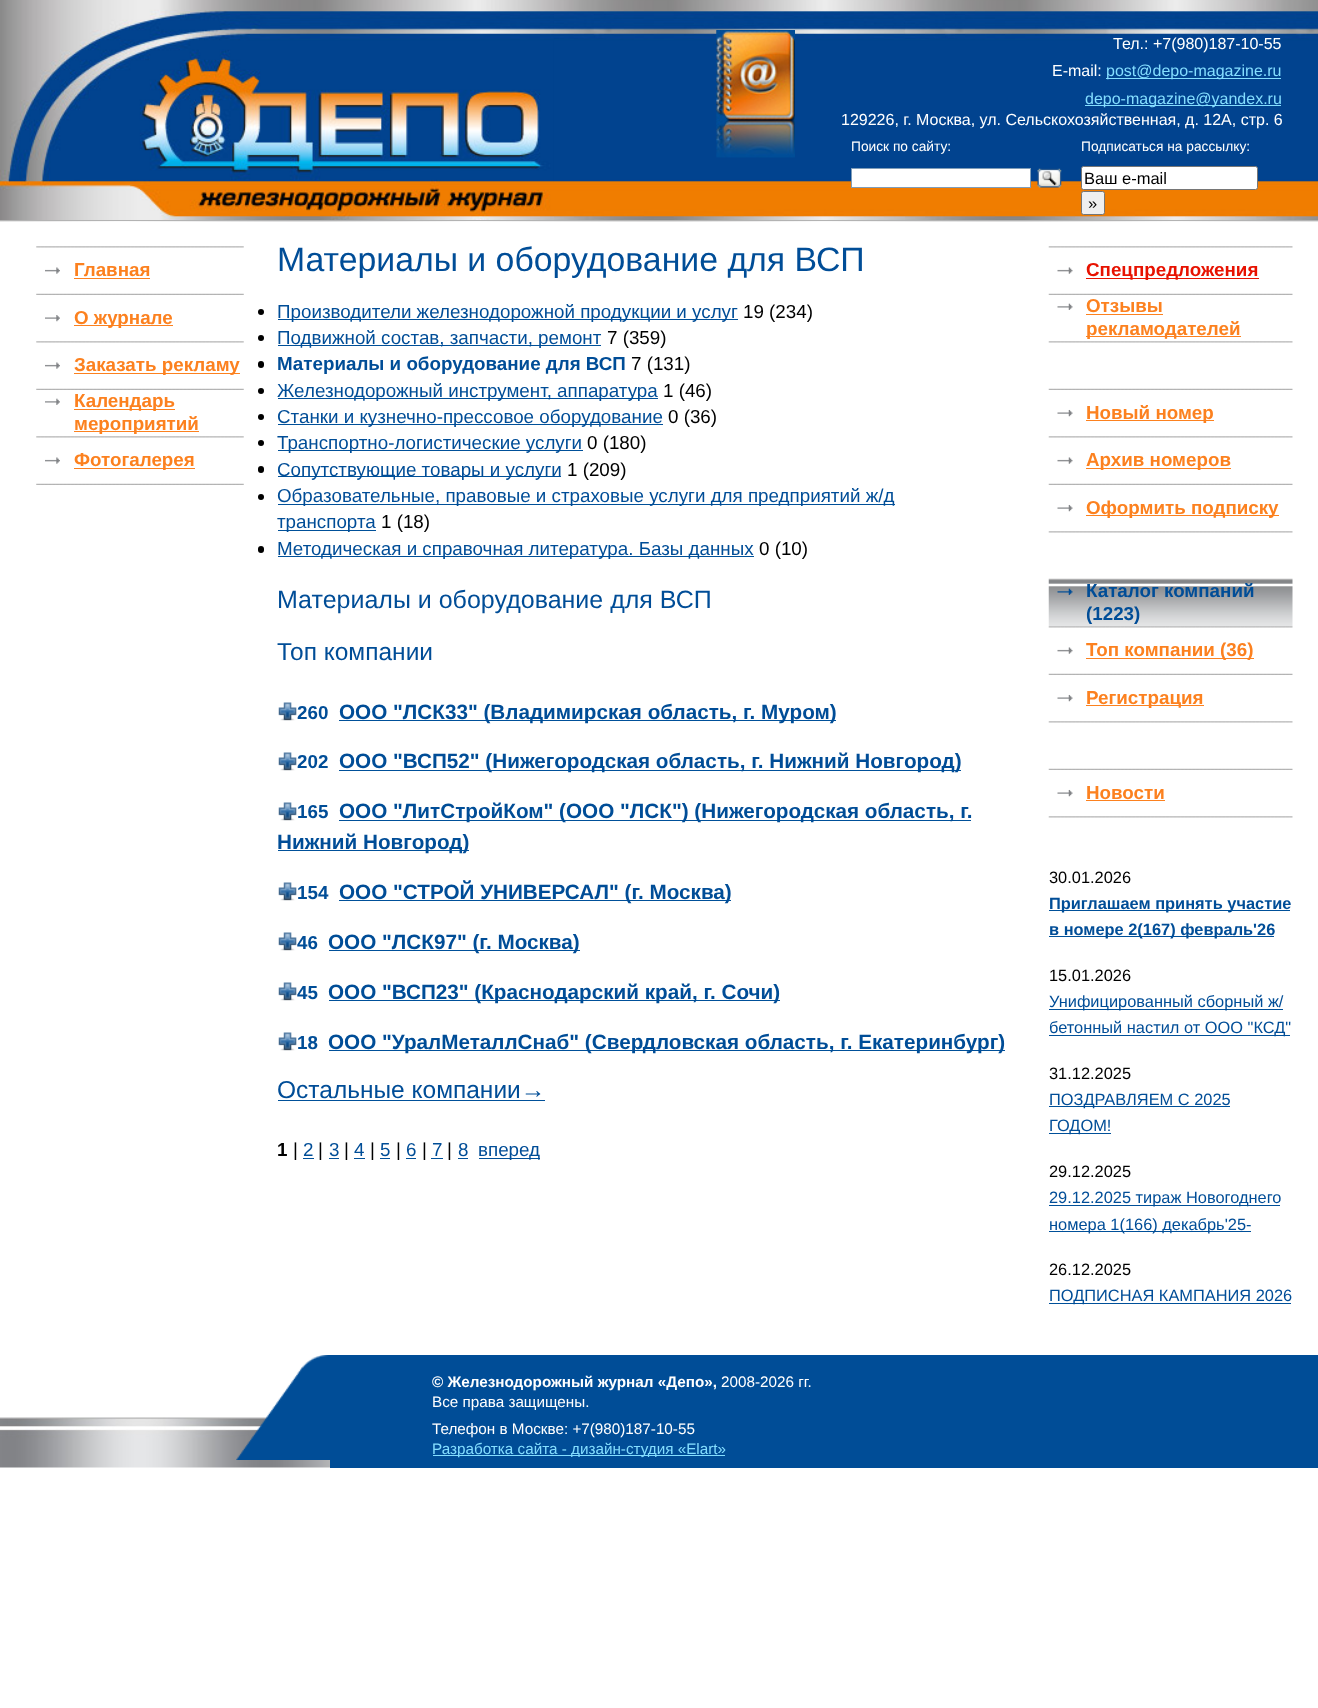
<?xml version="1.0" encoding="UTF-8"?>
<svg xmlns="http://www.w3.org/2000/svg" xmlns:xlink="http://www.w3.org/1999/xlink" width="1318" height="1708">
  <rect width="100%" height="100%" fill="#ffffff" />
  <image x="0" y="0" width="1318" height="222" xlink:href="image1.png" />
  <rect y="220" width="1318" height="1" fill="#b3b3b3" />
  <image x="0" y="0" width="554" height="220" xlink:href="image2.png" />
  <image x="716" y="30" width="79" height="128" xlink:href="image3.png" />
  <rect x="1106" y="78" width="175" height="1" fill="#84deff" />
  <rect x="1085" y="105" width="196" height="1" fill="#84deff" />
  <rect x="851.5" y="168.5" width="179" height="19" fill="#ffffff" stroke="#7f9db9" />
  <image x="1037" y="168" width="25" height="20" xlink:href="image4.png" />
  <rect x="1081.5" y="166.5" width="176" height="23" rx="2" fill="#ffffff" stroke="#767676" />
  <rect x="1081.5" y="191.5" width="23" height="23" rx="2" fill="#efefef" stroke="#767676" />
  <image x="36" y="246" width="208" height="2" xlink:href="image5.png" />
  <image x="45" y="267" width="15" height="7" xlink:href="image6.png" />
  <rect x="74" y="278" width="76" height="1" fill="#fc811f" />
  <image x="36" y="293" width="208" height="2" xlink:href="image7.png" />
  <image x="45" y="315" width="15" height="7" xlink:href="image8.png" />
  <rect x="74" y="325" width="99" height="1" fill="#fc811f" />
  <image x="36" y="341" width="208" height="2" xlink:href="image5.png" />
  <image x="45" y="362" width="15" height="7" xlink:href="image6.png" />
  <rect x="74" y="373" width="166" height="1" fill="#fc811f" />
  <image x="36" y="388" width="208" height="2" xlink:href="image7.png" />
  <image x="45" y="398" width="15" height="7" xlink:href="image9.png" />
  <rect x="74" y="409" width="101" height="1" fill="#fc811f" />
  <rect x="74" y="431" width="125" height="1" fill="#fc811f" />
  <image x="36" y="436" width="208" height="2" xlink:href="image5.png" />
  <image x="45" y="457" width="15" height="7" xlink:href="image6.png" />
  <rect x="74" y="468" width="121" height="1" fill="#fc811f" />
  <image x="36" y="483" width="208" height="2" xlink:href="image7.png" />
  <circle cx="261" cy="312" r="3" fill="#000000" />
  <rect x="278" y="319" width="460" height="1" fill="#005099" />
  <circle cx="261" cy="338" r="3" fill="#000000" />
  <rect x="278" y="345" width="323" height="1" fill="#005099" />
  <rect x="258" y="361" width="6" height="7" rx="3" fill="#000000" />
  <circle cx="261" cy="391" r="3" fill="#000000" />
  <rect x="278" y="398" width="380" height="1" fill="#005099" />
  <circle cx="261" cy="417" r="3" fill="#000000" />
  <rect x="278" y="424" width="385" height="1" fill="#005099" />
  <circle cx="261" cy="443" r="3" fill="#000000" />
  <rect x="278" y="450" width="305" height="1" fill="#005099" />
  <rect x="258" y="466" width="6" height="7" rx="3" fill="#000000" />
  <rect x="278" y="476" width="283" height="1" fill="#005099" />
  <circle cx="261" cy="497" r="3" fill="#000000" />
  <rect x="278" y="504" width="617" height="1" fill="#005099" />
  <rect x="278" y="530" width="98" height="1" fill="#005099" />
  <rect x="258" y="546" width="6" height="7" rx="3" fill="#000000" />
  <rect x="278" y="556" width="476" height="1" fill="#005099" />
  <image x="278" y="702" width="19" height="19" xlink:href="image10.png" />
  <rect x="339" y="720" width="497" height="1" fill="#005099" />
  <image x="278" y="752" width="19" height="19" xlink:href="image10.png" />
  <rect x="339" y="770" width="622" height="1" fill="#005099" />
  <image x="278" y="802" width="19" height="19" xlink:href="image10.png" />
  <rect x="339" y="820" width="632" height="1" fill="#005099" />
  <rect x="278" y="850" width="191" height="1" fill="#005099" />
  <image x="278" y="882" width="19" height="19" xlink:href="image10.png" />
  <rect x="339" y="900" width="392" height="1" fill="#005099" />
  <image x="278" y="932" width="19" height="19" xlink:href="image10.png" />
  <rect x="329" y="950" width="251" height="1" fill="#005099" />
  <image x="278" y="982" width="19" height="19" xlink:href="image10.png" />
  <rect x="329" y="1000" width="451" height="1" fill="#005099" />
  <image x="278" y="1032" width="19" height="19" xlink:href="image10.png" />
  <rect x="329" y="1050" width="676" height="1" fill="#005099" />
  <rect x="278" y="1100" width="267" height="1" fill="#005099" />
  <rect x="303" y="1158" width="11" height="1" fill="#005099" />
  <rect x="329" y="1158" width="10" height="1" fill="#005099" />
  <rect x="354" y="1158" width="11" height="1" fill="#005099" />
  <rect x="380" y="1158" width="10" height="1" fill="#005099" />
  <rect x="406" y="1158" width="10" height="1" fill="#005099" />
  <rect x="431" y="1158" width="12" height="1" fill="#005099" />
  <rect x="458" y="1158" width="10" height="1" fill="#005099" />
  <rect x="479" y="1158" width="61" height="1" fill="#005099" />
  <image x="1048" y="246" width="245" height="2" xlink:href="image11.png" />
  <image x="1057" y="267" width="16" height="7" xlink:href="image12.png" />
  <rect x="1086" y="278" width="173" height="1" fill="#e71201" />
  <image x="1048" y="293" width="245" height="2" xlink:href="image13.png" />
  <image x="1057" y="303" width="16" height="7" xlink:href="image14.png" />
  <rect x="1086" y="314" width="77" height="1" fill="#fc811f" />
  <rect x="1086" y="336" width="155" height="1" fill="#fc811f" />
  <image x="1048" y="341" width="245" height="2" xlink:href="image11.png" />
  <image x="1048" y="388" width="245" height="2" xlink:href="image13.png" />
  <image x="1057" y="409" width="16" height="8" xlink:href="image15.png" />
  <rect x="1086" y="420" width="128" height="1" fill="#fc811f" />
  <image x="1048" y="436" width="245" height="2" xlink:href="image11.png" />
  <image x="1057" y="457" width="16" height="7" xlink:href="image12.png" />
  <rect x="1086" y="468" width="145" height="1" fill="#fc811f" />
  <image x="1048" y="483" width="245" height="2" xlink:href="image13.png" />
  <image x="1057" y="504" width="16" height="8" xlink:href="image15.png" />
  <rect x="1086" y="515" width="193" height="1" fill="#fc811f" />
  <image x="1048" y="531" width="245" height="2" xlink:href="image11.png" />
  <image x="1048" y="578" width="245" height="49" xlink:href="image16.png" />
  <image x="1057" y="588" width="16" height="7" xlink:href="image17.png" />
  <image x="1048" y="626" width="245" height="2" xlink:href="image18.png" />
  <image x="1057" y="647" width="16" height="7" xlink:href="image12.png" />
  <rect x="1086" y="658" width="168" height="1" fill="#fc811f" />
  <image x="1048" y="673" width="245" height="2" xlink:href="image13.png" />
  <image x="1057" y="694" width="16" height="8" xlink:href="image15.png" />
  <rect x="1086" y="705" width="118" height="1" fill="#fc811f" />
  <image x="1048" y="721" width="245" height="2" xlink:href="image11.png" />
  <image x="1048" y="768" width="245" height="2" xlink:href="image13.png" />
  <image x="1057" y="789" width="16" height="8" xlink:href="image15.png" />
  <rect x="1086" y="800" width="79" height="1" fill="#fc811f" />
  <image x="1048" y="816" width="245" height="2" xlink:href="image11.png" />
  <rect x="1049" y="910" width="241" height="1" fill="#005099" />
  <rect x="1049" y="936" width="225" height="1" fill="#005099" />
  <rect x="1049" y="1009" width="234" height="1" fill="#005099" />
  <rect x="1049" y="1035" width="241" height="1" fill="#005099" />
  <rect x="1049" y="1106" width="181" height="1" fill="#005099" />
  <rect x="1049" y="1133" width="62" height="1" fill="#005099" />
  <rect x="1049" y="1205" width="231" height="1" fill="#005099" />
  <rect x="1049" y="1231" width="202" height="1" fill="#005099" />
  <rect x="1049" y="1303" width="242" height="1" fill="#005099" />
  <image x="0" y="1417" width="330" height="51" xlink:href="image19.png" />
  <rect x="330" y="1355" width="988" height="113" fill="#004d97" />
  <image x="236" y="1355" width="94" height="105" xlink:href="image20.png" />
  <rect x="433" y="1455" width="292" height="1" fill="#84deff" />
  <text x="1113" y="49" style="font-family: Liberation Sans; font-size: 16px; fill: #ffffff">Тел.: +7(980)187-10-55</text>
  <text x="1052" y="76" style="font-family: Liberation Sans; font-size: 16px; fill: #ffffff">E-mail:</text>
  <text x="1106" y="76" style="font-family: Liberation Sans; font-size: 16px; fill: #84deff">post@depo-magazine.ru</text>
  <text x="1085" y="104" style="font-family: Liberation Sans; font-size: 16px; fill: #84deff">depo-magazine@yandex.ru</text>
  <text x="841" y="125" style="font-family: Liberation Sans; font-size: 16px; fill: #ffffff">129226, г. Москва, ул. Сельскохозяйственная, д. 12А, стр. 6</text>
  <text x="851" y="151" style="font-family: Liberation Sans; font-size: 13.75px; fill: #ffffff">Поиск по сайту:</text>
  <text x="1081" y="151" style="font-family: Liberation Sans; font-size: 13.75px; fill: #ffffff">Подписаться на рассылку:</text>
  <text x="1084" y="184" style="font-family: Liberation Sans; font-size: 16.5px; fill: #000000">Ваш e-mail</text>
  <text x="1088" y="209" style="font-family: Liberation Sans; font-size: 16.5px; fill: #000000">»</text>
  <text x="74" y="276" style="font-family: Liberation Sans; font-size: 18.8px; font-weight: bold; fill: #fc811f">Главная</text>
  <text x="74" y="324" style="font-family: Liberation Sans; font-size: 18.8px; font-weight: bold; fill: #fc811f">О журнале</text>
  <text x="74" y="371" style="font-family: Liberation Sans; font-size: 18.8px; font-weight: bold; fill: #fc811f">Заказать рекламу</text>
  <text x="74" y="407" style="font-family: Liberation Sans; font-size: 18.8px; font-weight: bold; fill: #fc811f">Календарь</text>
  <text x="74" y="430" style="font-family: Liberation Sans; font-size: 18.8px; font-weight: bold; fill: #fc811f">мероприятий</text>
  <text x="74" y="466" style="font-family: Liberation Sans; font-size: 18.8px; font-weight: bold; fill: #fc811f">Фотогалерея</text>
  <text x="277" y="271" style="font-family: Liberation Sans; font-size: 33.8px; fill: #004d97">Материалы и оборудование для ВСП</text>
  <text x="277" y="318" style="font-family: Liberation Sans; font-size: 18.8px; fill: #004d97">Производители железнодорожной продукции и услуг</text>
  <text x="743" y="318" style="font-family: Liberation Sans; font-size: 18.8px; fill: #000000">19 (234)</text>
  <text x="277" y="344" style="font-family: Liberation Sans; font-size: 18.8px; fill: #004d97">Подвижной состав, запчасти, ремонт</text>
  <text x="607" y="344" style="font-family: Liberation Sans; font-size: 18.8px; fill: #000000">7 (359)</text>
  <text x="277" y="370" style="font-family: Liberation Sans; font-size: 18.8px; font-weight: bold; fill: #004d97">Материалы и оборудование для ВСП</text>
  <text x="631" y="370" style="font-family: Liberation Sans; font-size: 18.8px; fill: #000000">7 (131)</text>
  <text x="277" y="397" style="font-family: Liberation Sans; font-size: 18.8px; fill: #004d97">Железнодорожный инструмент, аппаратура</text>
  <text x="663" y="397" style="font-family: Liberation Sans; font-size: 18.8px; fill: #000000">1 (46)</text>
  <text x="277" y="423" style="font-family: Liberation Sans; font-size: 18.8px; fill: #004d97">Станки и кузнечно-прессовое оборудование</text>
  <text x="668" y="423" style="font-family: Liberation Sans; font-size: 18.8px; fill: #000000">0 (36)</text>
  <text x="277" y="449" style="font-family: Liberation Sans; font-size: 18.8px; fill: #004d97">Транспортно-логистические услуги</text>
  <text x="587" y="449" style="font-family: Liberation Sans; font-size: 18.8px; fill: #000000">0 (180)</text>
  <text x="277" y="476" style="font-family: Liberation Sans; font-size: 18.8px; fill: #004d97">Сопутствующие товары и услуги</text>
  <text x="567" y="476" style="font-family: Liberation Sans; font-size: 18.8px; fill: #000000">1 (209)</text>
  <text x="277" y="502" style="font-family: Liberation Sans; font-size: 18.8px; fill: #004d97">Образовательные, правовые и страховые услуги для предприятий ж/д</text>
  <text x="277" y="528" style="font-family: Liberation Sans; font-size: 18.8px; fill: #004d97">транспорта</text>
  <text x="381" y="528" style="font-family: Liberation Sans; font-size: 18.8px; fill: #000000">1 (18)</text>
  <text x="277" y="555" style="font-family: Liberation Sans; font-size: 18.8px; fill: #004d97">Методическая и справочная литература. Базы данных</text>
  <text x="759" y="555" style="font-family: Liberation Sans; font-size: 18.8px; fill: #000000">0 (10)</text>
  <text x="277" y="608" style="font-family: Liberation Sans; font-size: 25px; fill: #004d97">Материалы и оборудование для ВСП</text>
  <text x="277" y="660" style="font-family: Liberation Sans; font-size: 24.5px; fill: #004d97">Топ компании</text>
  <text x="297" y="719" style="font-family: Liberation Sans; font-size: 18.8px; font-weight: bold; fill: #004d97">260</text>
  <text x="339" y="719" style="font-family: Liberation Sans; font-size: 20.7px; font-weight: bold; fill: #004d97">ООО "ЛСК33" (Владимирская область, г. Муром)</text>
  <text x="297" y="768" style="font-family: Liberation Sans; font-size: 18.8px; font-weight: bold; fill: #004d97">202</text>
  <text x="339" y="768" style="font-family: Liberation Sans; font-size: 20.7px; font-weight: bold; fill: #004d97">ООО "ВСП52" (Нижегородская область, г. Нижний Новгород)</text>
  <text x="297" y="818" style="font-family: Liberation Sans; font-size: 18.8px; font-weight: bold; fill: #004d97">165</text>
  <text x="339" y="818" style="font-family: Liberation Sans; font-size: 20.7px; font-weight: bold; fill: #004d97">ООО "ЛитСтройКом" (ООО "ЛСК") (Нижегородская область, г.</text>
  <text x="277" y="849" style="font-family: Liberation Sans; font-size: 20.7px; font-weight: bold; fill: #004d97">Нижний Новгород)</text>
  <text x="297" y="899" style="font-family: Liberation Sans; font-size: 18.8px; font-weight: bold; fill: #004d97">154</text>
  <text x="339" y="899" style="font-family: Liberation Sans; font-size: 20.7px; font-weight: bold; fill: #004d97">ООО "СТРОЙ УНИВЕРСАЛ" (г. Москва)</text>
  <text x="297" y="949" style="font-family: Liberation Sans; font-size: 18.8px; font-weight: bold; fill: #004d97">46</text>
  <text x="328" y="949" style="font-family: Liberation Sans; font-size: 20.7px; font-weight: bold; fill: #004d97">ООО "ЛСК97" (г. Москва)</text>
  <text x="297" y="999" style="font-family: Liberation Sans; font-size: 18.8px; font-weight: bold; fill: #004d97">45</text>
  <text x="328" y="999" style="font-family: Liberation Sans; font-size: 20.7px; font-weight: bold; fill: #004d97">ООО "ВСП23" (Краснодарский край, г. Сочи)</text>
  <text x="297" y="1049" style="font-family: Liberation Sans; font-size: 18.8px; font-weight: bold; fill: #004d97">18</text>
  <text x="328" y="1049" style="font-family: Liberation Sans; font-size: 20.7px; font-weight: bold; fill: #004d97">ООО "УралМеталлСнаб" (Свердловская область, г. Екатеринбург)</text>
  <text x="277" y="1098" style="font-family: Liberation Sans; font-size: 24.5px; fill: #004d97">Остальные компании→</text>
  <text x="277" y="1156" style="font-family: Liberation Sans; font-size: 18.8px; font-weight: bold; fill: #000000">1</text>
  <text x="293" y="1156" style="font-family: Liberation Sans; font-size: 18.8px; fill: #000000">|</text>
  <text x="303" y="1156" style="font-family: Liberation Sans; font-size: 18.8px; fill: #004d97">2</text>
  <text x="318" y="1156" style="font-family: Liberation Sans; font-size: 18.8px; fill: #000000">|</text>
  <text x="329" y="1156" style="font-family: Liberation Sans; font-size: 18.8px; fill: #004d97">3</text>
  <text x="344" y="1156" style="font-family: Liberation Sans; font-size: 18.8px; fill: #000000">|</text>
  <text x="354" y="1156" style="font-family: Liberation Sans; font-size: 18.8px; fill: #004d97">4</text>
  <text x="370" y="1156" style="font-family: Liberation Sans; font-size: 18.8px; fill: #000000">|</text>
  <text x="380" y="1156" style="font-family: Liberation Sans; font-size: 18.8px; fill: #004d97">5</text>
  <text x="396" y="1156" style="font-family: Liberation Sans; font-size: 18.8px; fill: #000000">|</text>
  <text x="406" y="1156" style="font-family: Liberation Sans; font-size: 18.8px; fill: #004d97">6</text>
  <text x="422" y="1156" style="font-family: Liberation Sans; font-size: 18.8px; fill: #000000">|</text>
  <text x="432" y="1156" style="font-family: Liberation Sans; font-size: 18.8px; fill: #004d97">7</text>
  <text x="447" y="1156" style="font-family: Liberation Sans; font-size: 18.8px; fill: #000000">|</text>
  <text x="458" y="1156" style="font-family: Liberation Sans; font-size: 18.8px; fill: #004d97">8</text>
  <text x="478" y="1156" style="font-family: Liberation Sans; font-size: 18.8px; fill: #004d97">вперед</text>
  <text x="1086" y="276" style="font-family: Liberation Sans; font-size: 18.8px; font-weight: bold; fill: #e71201">Спецпредложения</text>
  <text x="1086" y="312" style="font-family: Liberation Sans; font-size: 18.8px; font-weight: bold; fill: #fc811f">Отзывы</text>
  <text x="1086" y="335" style="font-family: Liberation Sans; font-size: 18.8px; font-weight: bold; fill: #fc811f">рекламодателей</text>
  <text x="1086" y="419" style="font-family: Liberation Sans; font-size: 18.8px; font-weight: bold; fill: #fc811f">Новый номер</text>
  <text x="1086" y="466" style="font-family: Liberation Sans; font-size: 18.8px; font-weight: bold; fill: #fc811f">Архив номеров</text>
  <text x="1086" y="514" style="font-family: Liberation Sans; font-size: 18.8px; font-weight: bold; fill: #fc811f">Оформить подписку</text>
  <text x="1086" y="597" style="font-family: Liberation Sans; font-size: 18.8px; font-weight: bold; fill: #004d97">Каталог компаний</text>
  <text x="1086" y="620" style="font-family: Liberation Sans; font-size: 18.8px; font-weight: bold; fill: #004d97">(1223)</text>
  <text x="1086" y="656" style="font-family: Liberation Sans; font-size: 18.8px; font-weight: bold; fill: #fc811f">Топ компании (36)</text>
  <text x="1086" y="704" style="font-family: Liberation Sans; font-size: 18.8px; font-weight: bold; fill: #fc811f">Регистрация</text>
  <text x="1086" y="799" style="font-family: Liberation Sans; font-size: 18.8px; font-weight: bold; fill: #fc811f">Новости</text>
  <text x="1049" y="883" style="font-family: Liberation Sans; font-size: 16.4px; fill: #000000">30.01.2026</text>
  <text x="1049" y="909" style="font-family: Liberation Sans; font-size: 16.4px; font-weight: bold; fill: #004d97">Приглашаем принять участие</text>
  <text x="1049" y="935" style="font-family: Liberation Sans; font-size: 16.4px; font-weight: bold; fill: #004d97">в номере 2(167) февраль'26</text>
  <text x="1049" y="981" style="font-family: Liberation Sans; font-size: 16.4px; fill: #000000">15.01.2026</text>
  <text x="1049" y="1007" style="font-family: Liberation Sans; font-size: 16.4px; fill: #004d97">Унифицированный сборный ж/</text>
  <text x="1049" y="1033" style="font-family: Liberation Sans; font-size: 16.4px; fill: #004d97">бетонный настил от ООО "КСД"</text>
  <text x="1049" y="1079" style="font-family: Liberation Sans; font-size: 16.4px; fill: #000000">31.12.2025</text>
  <text x="1049" y="1105" style="font-family: Liberation Sans; font-size: 16.4px; fill: #004d97">ПОЗДРАВЛЯЕМ С 2025</text>
  <text x="1049" y="1131" style="font-family: Liberation Sans; font-size: 16.4px; fill: #004d97">ГОДОМ!</text>
  <text x="1049" y="1177" style="font-family: Liberation Sans; font-size: 16.4px; fill: #000000">29.12.2025</text>
  <text x="1049" y="1203" style="font-family: Liberation Sans; font-size: 16.4px; fill: #004d97">29.12.2025 тираж Новогоднего</text>
  <text x="1049" y="1230" style="font-family: Liberation Sans; font-size: 16.4px; fill: #004d97">номера 1(166) декабрь'25-</text>
  <text x="1049" y="1275" style="font-family: Liberation Sans; font-size: 16.4px; fill: #000000">26.12.2025</text>
  <text x="1049" y="1301" style="font-family: Liberation Sans; font-size: 16.4px; fill: #004d97">ПОДПИСНАЯ КАМПАНИЯ 2026</text>
  <text x="432" y="1387" style="font-family: Liberation Sans; font-size: 15.25px; font-weight: bold; fill: #ffffff">© Железнодорожный журнал «Депо»,</text>
  <text x="721" y="1387" style="font-family: Liberation Sans; font-size: 15.25px; fill: #ffffff">2008-2026 гг.</text>
  <text x="432" y="1407" style="font-family: Liberation Sans; font-size: 15.25px; fill: #ffffff">Все права защищены.</text>
  <text x="432" y="1434" style="font-family: Liberation Sans; font-size: 15.25px; fill: #ffffff">Телефон в Москве: +7(980)187-10-55</text>
  <text x="432" y="1454" style="font-family: Liberation Sans; font-size: 15.25px; fill: #84deff">Разработка сайта - дизайн-студия «Elart»</text>
</svg>
